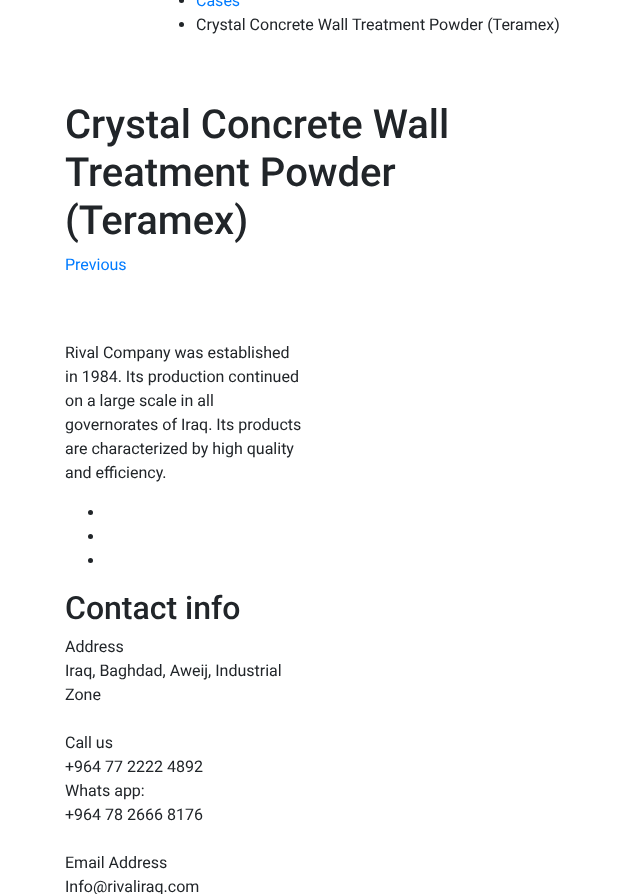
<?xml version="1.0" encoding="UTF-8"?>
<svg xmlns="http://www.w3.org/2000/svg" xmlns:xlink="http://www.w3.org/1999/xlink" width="639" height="894">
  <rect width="100%" height="100%" fill="#ffffff" />
  <circle cx="181.5" cy="0.5" r="2.5" fill="#212529" />
  <circle cx="181.5" cy="24.5" r="2.5" fill="#212529" />
  <circle cx="90.5" cy="512.5" r="2.5" fill="#212529" />
  <circle cx="90.5" cy="536.5" r="2.5" fill="#212529" />
  <circle cx="90.5" cy="560.5" r="2.5" fill="#212529" />
  <text x="196" y="6" style="font-family: Roboto; font-size: 16px; fill: #007bff">Cases</text>
  <text x="196" y="30" style="font-family: Roboto; font-size: 16px; fill: #212529">Crystal Concrete Wall Treatment Powder (Teramex)</text>
  <text x="65" y="138" style="font-family: Roboto; font-size: 40px; font-weight: 500; fill: #212529">Crystal Concrete Wall</text>
  <text x="65" y="186" style="font-family: Roboto; font-size: 40px; font-weight: 500; fill: #212529">Treatment Powder</text>
  <text x="65" y="234" style="font-family: Roboto; font-size: 40px; font-weight: 500; fill: #212529">(Teramex)</text>
  <text x="65" y="270" style="font-family: Roboto; font-size: 16px; fill: #007bff">Previous</text>
  <text x="65" y="358" style="font-family: Roboto; font-size: 16px; fill: #212529">Rival Company was established</text>
  <text x="65" y="382" style="font-family: Roboto; font-size: 16px; fill: #212529">in 1984. Its production continued</text>
  <text x="65" y="406" style="font-family: Roboto; font-size: 16px; fill: #212529">on a large scale in all</text>
  <text x="65" y="430" style="font-family: Roboto; font-size: 16px; fill: #212529">governorates of Iraq. Its products</text>
  <text x="65" y="454" style="font-family: Roboto; font-size: 16px; fill: #212529">are characterized by high quality</text>
  <text x="65" y="478" style="font-family: Roboto; font-size: 16px; fill: #212529">and efficiency.</text>
  <text x="65" y="619" style="font-family: Roboto; font-size: 32px; font-weight: 500; fill: #212529">Contact info</text>
  <text x="65" y="652" style="font-family: Roboto; font-size: 16px; fill: #212529">Address</text>
  <text x="65" y="676" style="font-family: Roboto; font-size: 16px; fill: #212529">Iraq, Baghdad, Aweij, Industrial</text>
  <text x="65" y="700" style="font-family: Roboto; font-size: 16px; fill: #212529">Zone</text>
  <text x="65" y="748" style="font-family: Roboto; font-size: 16px; fill: #212529">Call us</text>
  <text x="65" y="772" style="font-family: Roboto; font-size: 16px; fill: #212529">+964 77 2222 4892</text>
  <text x="65" y="796" style="font-family: Roboto; font-size: 16px; fill: #212529">Whats app:</text>
  <text x="65" y="820" style="font-family: Roboto; font-size: 16px; fill: #212529">+964 78 2666 8176</text>
  <text x="65" y="868" style="font-family: Roboto; font-size: 16px; fill: #212529">Email Address</text>
  <text x="65" y="892" style="font-family: Roboto; font-size: 16px; fill: #212529">Info@rivaliraq.com</text>
</svg>
